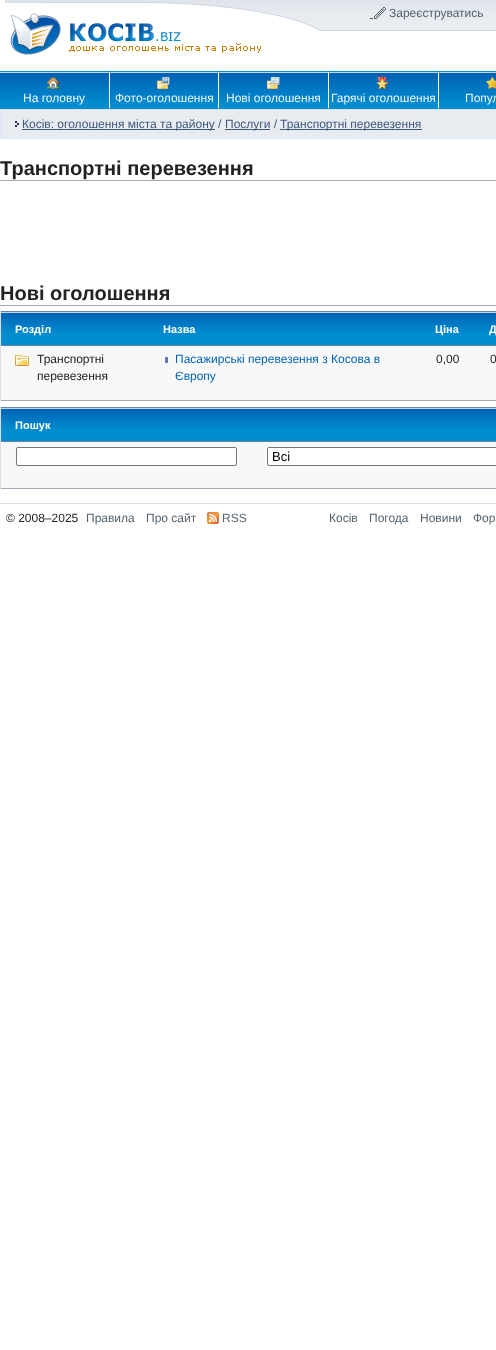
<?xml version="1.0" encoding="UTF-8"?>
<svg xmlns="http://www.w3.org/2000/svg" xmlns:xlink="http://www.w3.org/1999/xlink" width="496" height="1350">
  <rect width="100%" height="100%" fill="#ffffff" />
  <image x="321" y="0" width="175" height="31" xlink:href="image1.png" />
  <image x="5" y="0" width="316" height="55" xlink:href="image2.png" />
  <image x="370" y="7" width="16" height="12" xlink:href="image3.png" />
  <rect x="0.5" y="71.5" width="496" height="37" fill="none" stroke="#6882ad" />
  <rect y="71" width="109" height="38" fill="#008cce" />
  <image x="0" y="72" width="109" height="30" xlink:href="image4.png" />
  <image x="47" y="77" width="13" height="12" xlink:href="image5.png" />
  <rect x="110" y="71" width="108" height="38" fill="#008cce" />
  <image x="110" y="72" width="108" height="30" xlink:href="image6.png" />
  <image x="157" y="77" width="13" height="12" xlink:href="image7.png" />
  <rect x="219" y="71" width="109" height="38" fill="#008cce" />
  <image x="219" y="72" width="109" height="30" xlink:href="image4.png" />
  <image x="267" y="77" width="13" height="12" xlink:href="image8.png" />
  <rect x="329" y="71" width="109" height="38" fill="#008cce" />
  <image x="329" y="72" width="109" height="30" xlink:href="image4.png" />
  <image x="377" y="77" width="12" height="12" xlink:href="image9.png" />
  <rect x="439" y="71" width="57" height="38" fill="#008cce" />
  <image x="439" y="72" width="57" height="30" xlink:href="image10.png" />
  <image x="486" y="77" width="10" height="12" xlink:href="image11.png" />
  <rect x="0.5" y="109.5" width="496" height="29" fill="#e8ebf0" stroke="#dbe8fa" />
  <image x="15" y="121" width="4" height="6" xlink:href="image12.png" />
  <rect x="22" y="129" width="193" height="1" fill="#41597f" />
  <rect x="225" y="129" width="45" height="1" fill="#41597f" />
  <rect x="280" y="129" width="142" height="1" fill="#41597f" />
  <rect y="180" width="496" height="1" fill="#a3aab7" />
  <rect y="305" width="496" height="1" fill="#a3aab7" />
  <rect x="1" y="346" width="495" height="54" fill="#f8f8f8" />
  <rect y="400" width="496" height="1" fill="#a3aab7" />
  <rect y="311" width="1" height="90" fill="#dedede" />
  <rect x="1" y="332" width="495" height="13" fill="#008cce" />
  <image x="1" y="312" width="148" height="20" xlink:href="image13.png" />
  <rect x="1" y="311" width="495" height="1" fill="#6882ad" />
  <rect x="1" y="345" width="495" height="1" fill="#6882ad" />
  <image x="149" y="312" width="272" height="20" xlink:href="image14.png" />
  <image x="421" y="312" width="54" height="20" xlink:href="image15.png" />
  <image x="475" y="312" width="21" height="20" xlink:href="image16.png" />
  <image x="15" y="355" width="14" height="11" xlink:href="image17.png" />
  <rect x="165" y="357" width="3" height="6" fill="#627ca8" />
  <rect x="1" y="442" width="495" height="46" fill="#f8f8f8" />
  <rect y="488" width="496" height="1" fill="#a3aab7" />
  <rect y="407" width="1" height="82" fill="#dedede" />
  <rect x="1" y="428" width="495" height="13" fill="#008cce" />
  <image x="1" y="408" width="495" height="20" xlink:href="image18.png" />
  <rect x="1" y="407" width="495" height="1" fill="#6882ad" />
  <rect x="1" y="441" width="495" height="1" fill="#6882ad" />
  <rect x="16.5" y="447.5" width="220" height="18" rx="1.5" fill="#ffffff" stroke="#767676" />
  <rect x="267.5" y="447.5" width="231" height="18" rx="1.5" fill="#ffffff" stroke="#767676" />
  <rect y="503" width="496" height="1" fill="#dedede" />
  <image x="207" y="512" width="12" height="12" xlink:href="image19.png" />
  <text x="389" y="17" style="font-family: Liberation Sans; font-size: 12px; fill: #53626d">Зареєструватись</text>
  <text x="23" y="102" style="font-family: Liberation Sans; font-size: 12px; fill: #edf7fd">На головну</text>
  <text x="115" y="102" style="font-family: Liberation Sans; font-size: 12px; fill: #edf7fd">Фото-оголошення</text>
  <text x="226" y="102" style="font-family: Liberation Sans; font-size: 12px; fill: #edf7fd">Нові оголошення</text>
  <text x="331" y="102" style="font-family: Liberation Sans; font-size: 12px; fill: #edf7fd">Гарячі оголошення</text>
  <text x="465" y="102" style="font-family: Liberation Sans; font-size: 12px; fill: #edf7fd">Попул</text>
  <text x="22" y="128" style="font-family: Liberation Sans; font-size: 12px; fill: #41597f">Косів: оголошення міста та району /</text>
  <text x="225" y="128" style="font-family: Liberation Sans; font-size: 12px; fill: #41597f">Послуги /</text>
  <text x="280" y="128" style="font-family: Liberation Sans; font-size: 12px; fill: #41597f">Транспортні перевезення</text>
  <text x="0" y="175" style="font-family: Liberation Sans; font-size: 20px; font-weight: bold; fill: #222222">Транспортні перевезення</text>
  <text x="0" y="300" style="font-family: Liberation Sans; font-size: 20px; font-weight: bold; fill: #222222">Нові оголошення</text>
  <text x="15" y="333" style="font-family: Liberation Sans; font-size: 11px; font-weight: bold; fill: #ffffff">Розділ</text>
  <text x="163" y="333" style="font-family: Liberation Sans; font-size: 11px; font-weight: bold; fill: #ffffff">Назва</text>
  <text x="435" y="333" style="font-family: Liberation Sans; font-size: 11px; font-weight: bold; fill: #ffffff">Ціна</text>
  <text x="489" y="333" style="font-family: Liberation Sans; font-size: 11px; font-weight: bold; fill: #ffffff">Д</text>
  <text x="37" y="363" style="font-family: Liberation Sans; font-size: 12px; fill: #222222">Транспортні</text>
  <text x="37" y="380" style="font-family: Liberation Sans; font-size: 12px; fill: #222222">перевезення</text>
  <text x="175" y="363" style="font-family: Liberation Sans; font-size: 12px; fill: #0065b7">Пасажирські перевезення з Косова в</text>
  <text x="175" y="380" style="font-family: Liberation Sans; font-size: 12px; fill: #0065b7">Європу</text>
  <text x="436" y="363" style="font-family: Liberation Sans; font-size: 12px; fill: #222222">0,00</text>
  <text x="490" y="363" style="font-family: Liberation Sans; font-size: 12px; fill: #222222">0</text>
  <text x="15" y="429" style="font-family: Liberation Sans; font-size: 11px; font-weight: bold; fill: #ffffff">Пошук</text>
  <text x="272" y="461" style="font-family: Liberation Sans; font-size: 13px; fill: #000000">Всі</text>
  <text x="6" y="522" style="font-family: Liberation Sans; font-size: 12px; fill: #222222">© 2008–2025</text>
  <text x="86" y="522" style="font-family: Liberation Sans; font-size: 12px; fill: #53626d">Правила</text>
  <text x="146" y="522" style="font-family: Liberation Sans; font-size: 12px; fill: #53626d">Про сайт</text>
  <text x="222" y="522" style="font-family: Liberation Sans; font-size: 12px; fill: #53626d">RSS</text>
  <text x="329" y="522" style="font-family: Liberation Sans; font-size: 12px; fill: #53626d">Косів</text>
  <text x="369" y="522" style="font-family: Liberation Sans; font-size: 12px; fill: #53626d">Погода</text>
  <text x="420" y="522" style="font-family: Liberation Sans; font-size: 12px; fill: #53626d">Новини</text>
  <text x="473" y="522" style="font-family: Liberation Sans; font-size: 12px; fill: #53626d">Фор</text>
</svg>
